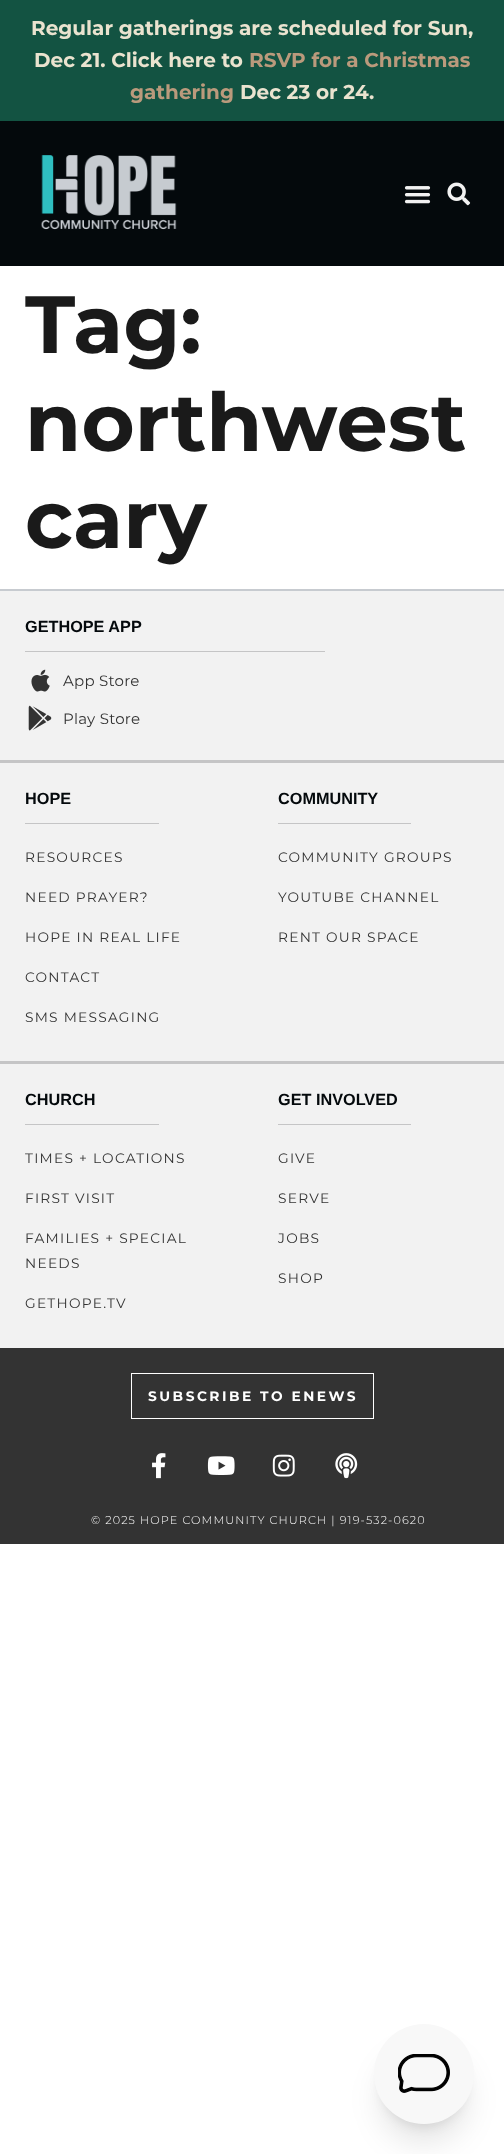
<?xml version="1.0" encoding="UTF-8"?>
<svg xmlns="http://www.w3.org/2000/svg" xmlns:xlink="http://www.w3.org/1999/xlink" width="504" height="2154">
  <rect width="100%" height="100%" fill="#ffffff" />
  <rect width="504" height="121" fill="#135342" />
  <rect y="121" width="504" height="145" fill="#04090c" />
  <image x="41" y="155" width="136" height="75" xlink:href="image1.png" />
  <image x="404" y="186" width="27" height="18" xlink:href="image2.png" />
  <image x="447" y="182" width="24" height="24" xlink:href="image3.png" />
  <rect y="589" width="504" height="2" fill="#c7cbd0" />
  <rect y="591" width="504" height="757" fill="#f2f2f2" />
  <rect x="25" y="651" width="300" height="1" fill="#c5c5c6" />
  <image x="31" y="669" width="19" height="23" xlink:href="image4.png" />
  <image x="28" y="705" width="24" height="26" xlink:href="image5.png" />
  <rect y="760" width="504" height="3" fill="#c5c5c6" />
  <rect x="25" y="823" width="134" height="1" fill="#c5c5c6" />
  <rect x="278" y="823" width="133" height="1" fill="#c5c5c6" />
  <rect y="1061" width="504" height="3" fill="#c5c5c6" />
  <rect x="25" y="1124" width="134" height="1" fill="#c5c5c6" />
  <rect x="278" y="1124" width="133" height="1" fill="#c5c5c6" />
  <rect y="1348" width="504" height="196" fill="#333333" />
  <rect x="131.5" y="1373.5" width="242" height="45" fill="none" stroke="#ffffff" />
  <image x="152" y="1453" width="14" height="26" xlink:href="image6.png" />
  <image x="207" y="1456" width="28" height="19" xlink:href="image7.png" />
  <image x="272" y="1454" width="23" height="23" xlink:href="image8.png" />
  <image x="335" y="1453" width="23" height="26" xlink:href="image9.png" />
  <rect x="381" y="2041" width="85" height="85" rx="42.5" fill="#000000" fill-opacity="0.1" filter="blur(6px)" />
  <rect x="380" y="2055" width="88" height="88" rx="44" fill="#000000" fill-opacity="0.1" filter="blur(15.5px)" />
  <circle cx="424" cy="2074" r="50" fill="#f8f8f8" />
  <image x="398" y="2054" width="52" height="39" xlink:href="image10.png" />
  <text x="31" y="35" style="font-family: Montserrat; font-size: 20px; font-weight: bold; fill: #eae3cf">Regular gatherings are scheduled for Sun,</text>
  <text x="34" y="67" style="font-family: Montserrat; font-size: 20px; font-weight: bold; fill: #eae3cf">Dec 21. Click here to</text>
  <text x="249" y="67" style="font-family: Montserrat; font-size: 20px; font-weight: bold; fill: #ba9a7c">RSVP for a Christmas</text>
  <text x="130" y="99" style="font-family: Montserrat; font-size: 20px; font-weight: bold; fill: #ba9a7c">gathering</text>
  <text x="240" y="99" style="font-family: Montserrat; font-size: 20px; font-weight: bold; fill: #eae3cf">Dec 23 or 24.</text>
  <text x="25" y="353" style="font-family: Montserrat; font-size: 81.25px; font-weight: bold; fill: #1a1a1a">Tag:</text>
  <text x="25" y="451" style="font-family: Montserrat; font-size: 81.25px; font-weight: bold; fill: #1a1a1a">northwest</text>
  <text x="25" y="548" style="font-family: Montserrat; font-size: 81.25px; font-weight: bold; fill: #1a1a1a">cary</text>
  <text x="25" y="632" style="font-family: Liberation Sans; font-size: 16.25px; font-weight: bold; fill: #04090c">GETHOPE APP</text>
  <text x="63" y="686" style="font-family: Montserrat; font-size: 15px; letter-spacing: 0.25px; fill: #333333">App Store</text>
  <text x="63" y="724" style="font-family: Montserrat; font-size: 15px; letter-spacing: 0.25px; fill: #333333">Play Store</text>
  <text x="25" y="804" style="font-family: Liberation Sans; font-size: 16.25px; font-weight: bold; fill: #04090c">HOPE</text>
  <text x="25" y="862" style="font-family: Montserrat; font-size: 13.75px; letter-spacing: 1.25px; fill: #333333">RESOURCES</text>
  <text x="25" y="902" style="font-family: Montserrat; font-size: 13.75px; letter-spacing: 1.25px; fill: #333333">NEED PRAYER?</text>
  <text x="25" y="942" style="font-family: Montserrat; font-size: 13.75px; letter-spacing: 1.25px; fill: #333333">HOPE IN REAL LIFE</text>
  <text x="25" y="982" style="font-family: Montserrat; font-size: 13.75px; letter-spacing: 1.25px; fill: #333333">CONTACT</text>
  <text x="25" y="1022" style="font-family: Montserrat; font-size: 13.75px; letter-spacing: 1.25px; fill: #333333">SMS MESSAGING</text>
  <text x="278" y="804" style="font-family: Liberation Sans; font-size: 16.25px; font-weight: bold; fill: #04090c">COMMUNITY</text>
  <text x="278" y="862" style="font-family: Montserrat; font-size: 13.75px; letter-spacing: 1.25px; fill: #333333">COMMUNITY GROUPS</text>
  <text x="278" y="902" style="font-family: Montserrat; font-size: 13.75px; letter-spacing: 1.25px; fill: #333333">YOUTUBE CHANNEL</text>
  <text x="278" y="942" style="font-family: Montserrat; font-size: 13.75px; letter-spacing: 1.25px; fill: #333333">RENT OUR SPACE</text>
  <text x="25" y="1105" style="font-family: Liberation Sans; font-size: 16.25px; font-weight: bold; fill: #04090c">CHURCH</text>
  <text x="25" y="1163" style="font-family: Montserrat; font-size: 13.75px; letter-spacing: 1.25px; fill: #333333">TIMES + LOCATIONS</text>
  <text x="25" y="1203" style="font-family: Montserrat; font-size: 13.75px; letter-spacing: 1.25px; fill: #333333">FIRST VISIT</text>
  <text x="25" y="1243" style="font-family: Montserrat; font-size: 13.75px; letter-spacing: 1.25px; fill: #333333">FAMILIES + SPECIAL</text>
  <text x="25" y="1268" style="font-family: Montserrat; font-size: 13.75px; letter-spacing: 1.25px; fill: #333333">NEEDS</text>
  <text x="25" y="1308" style="font-family: Montserrat; font-size: 13.75px; letter-spacing: 1.25px; fill: #333333">GETHOPE.TV</text>
  <text x="278" y="1105" style="font-family: Liberation Sans; font-size: 16.25px; font-weight: bold; fill: #04090c">GET INVOLVED</text>
  <text x="278" y="1163" style="font-family: Montserrat; font-size: 13.75px; letter-spacing: 1.25px; fill: #333333">GIVE</text>
  <text x="278" y="1203" style="font-family: Montserrat; font-size: 13.75px; letter-spacing: 1.25px; fill: #333333">SERVE</text>
  <text x="278" y="1243" style="font-family: Montserrat; font-size: 13.75px; letter-spacing: 1.25px; fill: #333333">JOBS</text>
  <text x="278" y="1283" style="font-family: Montserrat; font-size: 13.75px; letter-spacing: 1.25px; fill: #333333">SHOP</text>
  <text x="148" y="1401" style="font-family: Montserrat; font-size: 13.75px; font-weight: bold; letter-spacing: 2.5px; fill: #ffffff">SUBSCRIBE TO ENEWS</text>
  <text x="91" y="1524" style="font-family: Montserrat; font-size: 11.25px; font-weight: 300; letter-spacing: 1.1px; fill: #ffffff">© 2025 HOPE COMMUNITY CHURCH | 919-532-0620</text>
</svg>
